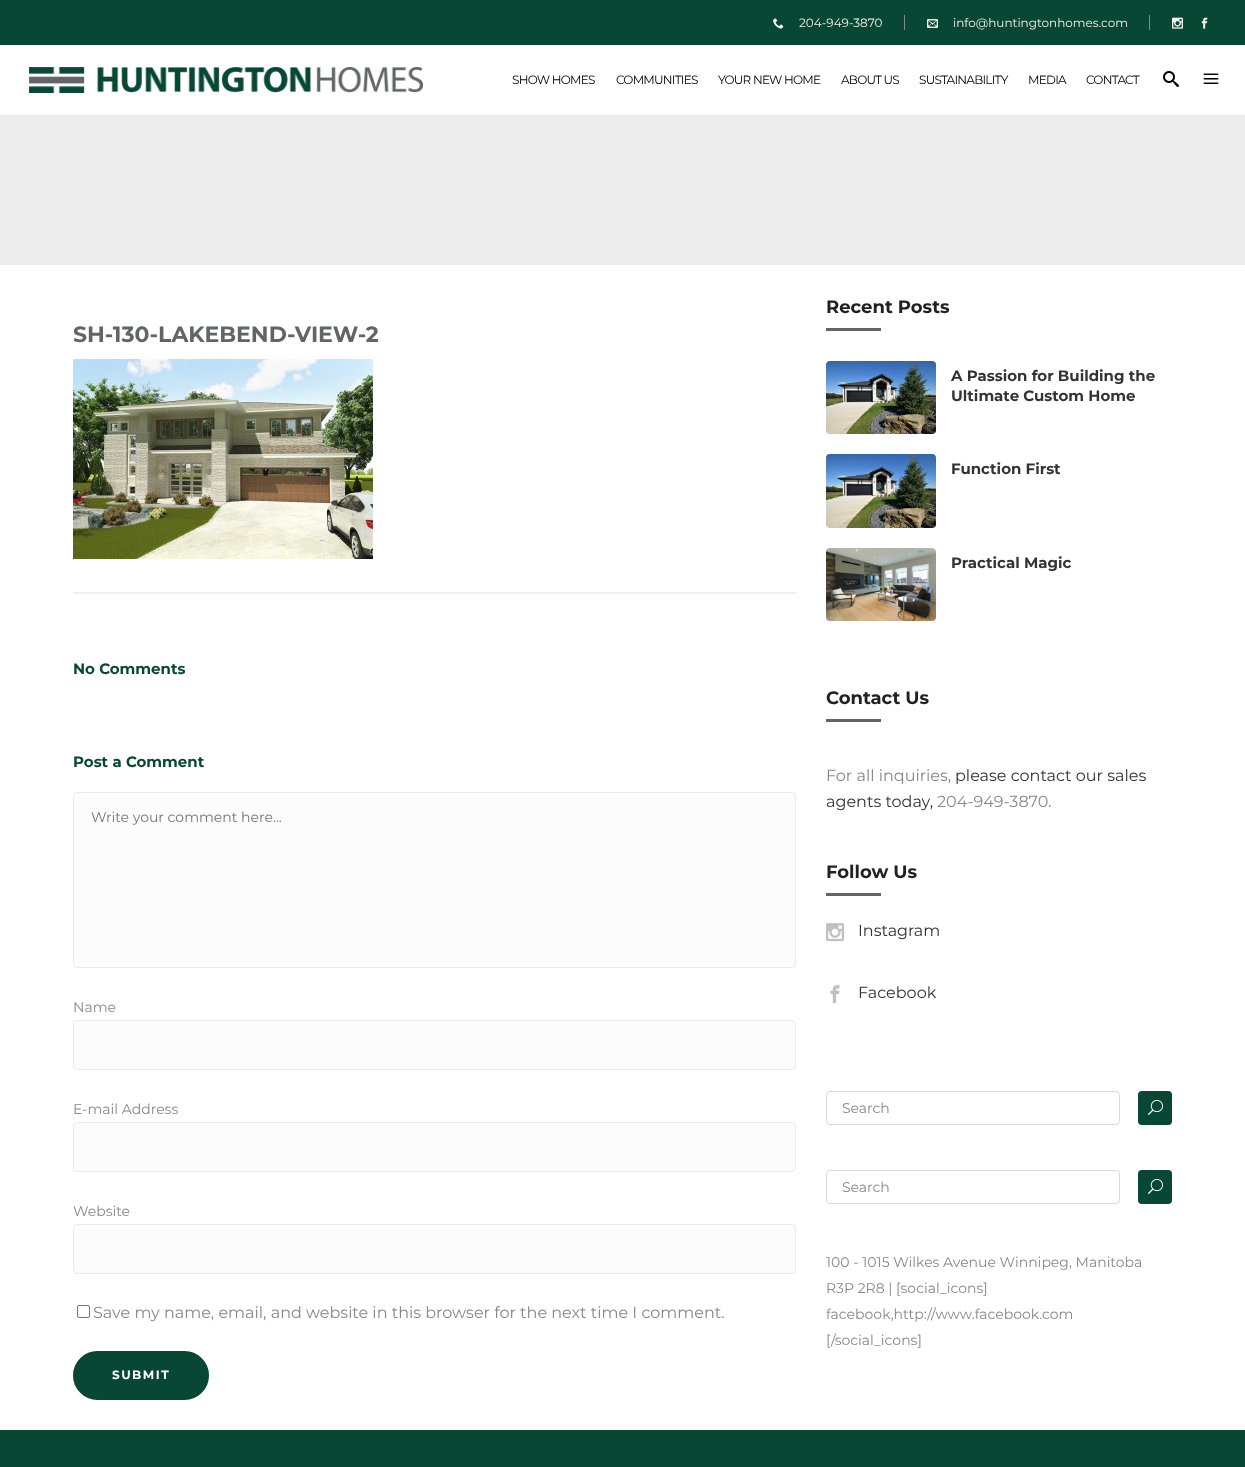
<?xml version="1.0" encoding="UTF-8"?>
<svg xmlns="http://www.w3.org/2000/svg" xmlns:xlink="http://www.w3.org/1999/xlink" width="1245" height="1467">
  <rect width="100%" height="100%" fill="#ffffff" />
  <rect width="1245" height="45" fill="#074733" />
  <image x="773" y="18" width="11" height="11" xlink:href="image1.png" />
  <rect x="904" y="15" width="1" height="15" fill="#888888" />
  <image x="927" y="19" width="11" height="9" xlink:href="image2.png" />
  <rect x="1149" y="15" width="1" height="15" fill="#888888" />
  <image x="1172" y="17" width="11" height="12" xlink:href="image3.png" />
  <image x="1201" y="17" width="7" height="12" xlink:href="image4.png" />
  <image x="29" y="67" width="394" height="26" xlink:href="image5.png" />
  <image x="1163" y="71" width="16" height="16" xlink:href="image6.png" />
  <image x="1203" y="73" width="16" height="11" xlink:href="image7.png" />
  <rect y="115" width="1245" height="150" fill="#ededed" />
  <rect x="73" y="592" width="723" height="2" fill="#efefef" />
  <image x="73" y="359" width="300" height="200" xlink:href="image8.png" />
  <rect x="73.5" y="792.5" width="722" height="175" rx="3.5" fill="#fcfcfc" stroke="#ebebeb" />
  <rect x="73.5" y="1020.5" width="722" height="49" rx="3.5" fill="#fcfcfc" stroke="#ebebeb" />
  <rect x="73.5" y="1122.5" width="722" height="49" rx="3.5" fill="#fcfcfc" stroke="#ebebeb" />
  <rect x="73.5" y="1224.5" width="722" height="49" rx="3.5" fill="#fcfcfc" stroke="#ebebeb" />
  <rect x="77.5" y="1305.5" width="12" height="12" rx="1.5" fill="none" stroke="#767676" />
  <rect x="74" y="1352" width="134" height="47" rx="23.5" fill="#074733" stroke="#074733" stroke-width="2" />
  <rect x="826" y="328" width="55" height="3" fill="#636466" />
  <image x="826" y="361" width="110" height="73" xlink:href="image9.png" />
  <image x="826" y="454" width="110" height="74" xlink:href="image10.png" />
  <image x="826" y="548" width="110" height="73" xlink:href="image11.png" />
  <rect x="826" y="719" width="55" height="3" fill="#636466" />
  <rect x="826" y="893" width="55" height="3" fill="#636466" />
  <image x="826" y="923" width="18" height="19" xlink:href="image12.png" />
  <image x="830" y="985" width="10" height="19" xlink:href="image13.png" />
  <rect x="826.5" y="1091.5" width="293" height="33" rx="3.5" fill="none" stroke="#d9d9d9" />
  <rect x="1138" y="1091" width="34" height="34" rx="4" fill="#074733" />
  <image x="1148" y="1099" width="15" height="16" xlink:href="image14.png" />
  <rect x="826.5" y="1170.5" width="293" height="33" rx="3.5" fill="none" stroke="#d9d9d9" />
  <rect x="1138" y="1170" width="34" height="34" rx="4" fill="#074733" />
  <image x="1148" y="1178" width="15" height="16" xlink:href="image14.png" />
  <rect y="1430" width="1245" height="37" fill="#074733" />
  <text x="799" y="27" style="font-family: Montserrat; font-size: 12px; fill: #f3efea">204-949-3870</text>
  <text x="953" y="27" style="font-family: Montserrat; font-size: 12px; fill: #f3efea">info@huntingtonhomes.com</text>
  <text x="512" y="84" style="font-family: Montserrat; font-size: 12px; letter-spacing: -0.75px; fill: #000000">SHOW HOMES</text>
  <text x="616" y="84" style="font-family: Montserrat; font-size: 12px; letter-spacing: -0.75px; fill: #000000">COMMUNITIES</text>
  <text x="718" y="84" style="font-family: Montserrat; font-size: 12px; letter-spacing: -0.75px; fill: #000000">YOUR NEW HOME</text>
  <text x="841" y="84" style="font-family: Montserrat; font-size: 12px; letter-spacing: -0.75px; fill: #000000">ABOUT US</text>
  <text x="919" y="84" style="font-family: Montserrat; font-size: 12px; letter-spacing: -0.75px; fill: #000000">SUSTAINABILITY</text>
  <text x="1028" y="84" style="font-family: Montserrat; font-size: 12px; letter-spacing: -0.75px; fill: #000000">MEDIA</text>
  <text x="1086" y="84" style="font-family: Montserrat; font-size: 12px; letter-spacing: -0.75px; fill: #000000">CONTACT</text>
  <text x="73" y="342" style="font-family: Montserrat; font-size: 22px; font-weight: bold; fill: #636466">SH-130-LAKEBEND-VIEW-2</text>
  <text x="73" y="674" style="font-family: Montserrat; font-size: 15px; font-weight: bold; fill: #074733">No Comments</text>
  <text x="73" y="767" style="font-family: Montserrat; font-size: 15px; font-weight: bold; fill: #074733">Post a Comment</text>
  <text x="91" y="822" style="font-family: Montserrat; font-size: 14px; fill: #757575">Write your comment here...</text>
  <text x="73" y="1012" style="font-family: Montserrat; font-size: 14px; fill: #888888">Name</text>
  <text x="73" y="1114" style="font-family: Montserrat; font-size: 14px; fill: #888888">E-mail Address</text>
  <text x="73" y="1216" style="font-family: Montserrat; font-size: 14px; fill: #888888">Website</text>
  <text x="93" y="1318" style="font-family: Montserrat; font-size: 16px; fill: #888888">Save my name, email, and website in this browser for the next time I comment.</text>
  <text x="112" y="1379" style="font-family: Montserrat; font-size: 12px; font-weight: bold; letter-spacing: 1.5px; fill: #ffffff">SUBMIT</text>
  <text x="826" y="313" style="font-family: Montserrat; font-size: 18px; font-weight: bold; fill: #212121">Recent Posts</text>
  <text x="951" y="381" style="font-family: Montserrat; font-size: 15px; font-weight: bold; fill: #333333">A Passion for Building the</text>
  <text x="951" y="401" style="font-family: Montserrat; font-size: 15px; font-weight: bold; fill: #333333">Ultimate Custom Home</text>
  <text x="951" y="474" style="font-family: Montserrat; font-size: 15px; font-weight: bold; fill: #333333">Function First</text>
  <text x="951" y="568" style="font-family: Montserrat; font-size: 15px; font-weight: bold; fill: #333333">Practical Magic</text>
  <text x="826" y="704" style="font-family: Montserrat; font-size: 18px; font-weight: bold; fill: #212121">Contact Us</text>
  <text x="826" y="781" style="font-family: Montserrat; font-size: 16px; fill: #888888">For all inquiries,</text>
  <text x="955" y="781" style="font-family: Montserrat; font-size: 16px; fill: #333333">please contact our sales</text>
  <text x="826" y="807" style="font-family: Montserrat; font-size: 16px; fill: #333333">agents today,</text>
  <text x="937" y="807" style="font-family: Montserrat; font-size: 16px; fill: #888888">204-949-3870.</text>
  <text x="826" y="878" style="font-family: Montserrat; font-size: 18px; font-weight: bold; fill: #212121">Follow Us</text>
  <text x="858" y="936" style="font-family: Montserrat; font-size: 16px; fill: #333333">Instagram</text>
  <text x="858" y="998" style="font-family: Montserrat; font-size: 16px; fill: #333333">Facebook</text>
  <text x="842" y="1113" style="font-family: Montserrat; font-size: 14px; fill: #888888">Search</text>
  <text x="842" y="1192" style="font-family: Montserrat; font-size: 14px; fill: #888888">Search</text>
  <text x="826" y="1267" style="font-family: Montserrat; font-size: 14px; fill: #888888">100 - 1015 Wilkes Avenue Winnipeg, Manitoba</text>
  <text x="826" y="1293" style="font-family: Montserrat; font-size: 14px; fill: #888888">R3P 2R8 | [social_icons]</text>
  <text x="826" y="1319" style="font-family: Montserrat; font-size: 14px; fill: #888888">facebook,http://www.facebook.com</text>
  <text x="826" y="1345" style="font-family: Montserrat; font-size: 14px; fill: #888888">[/social_icons]</text>
</svg>
